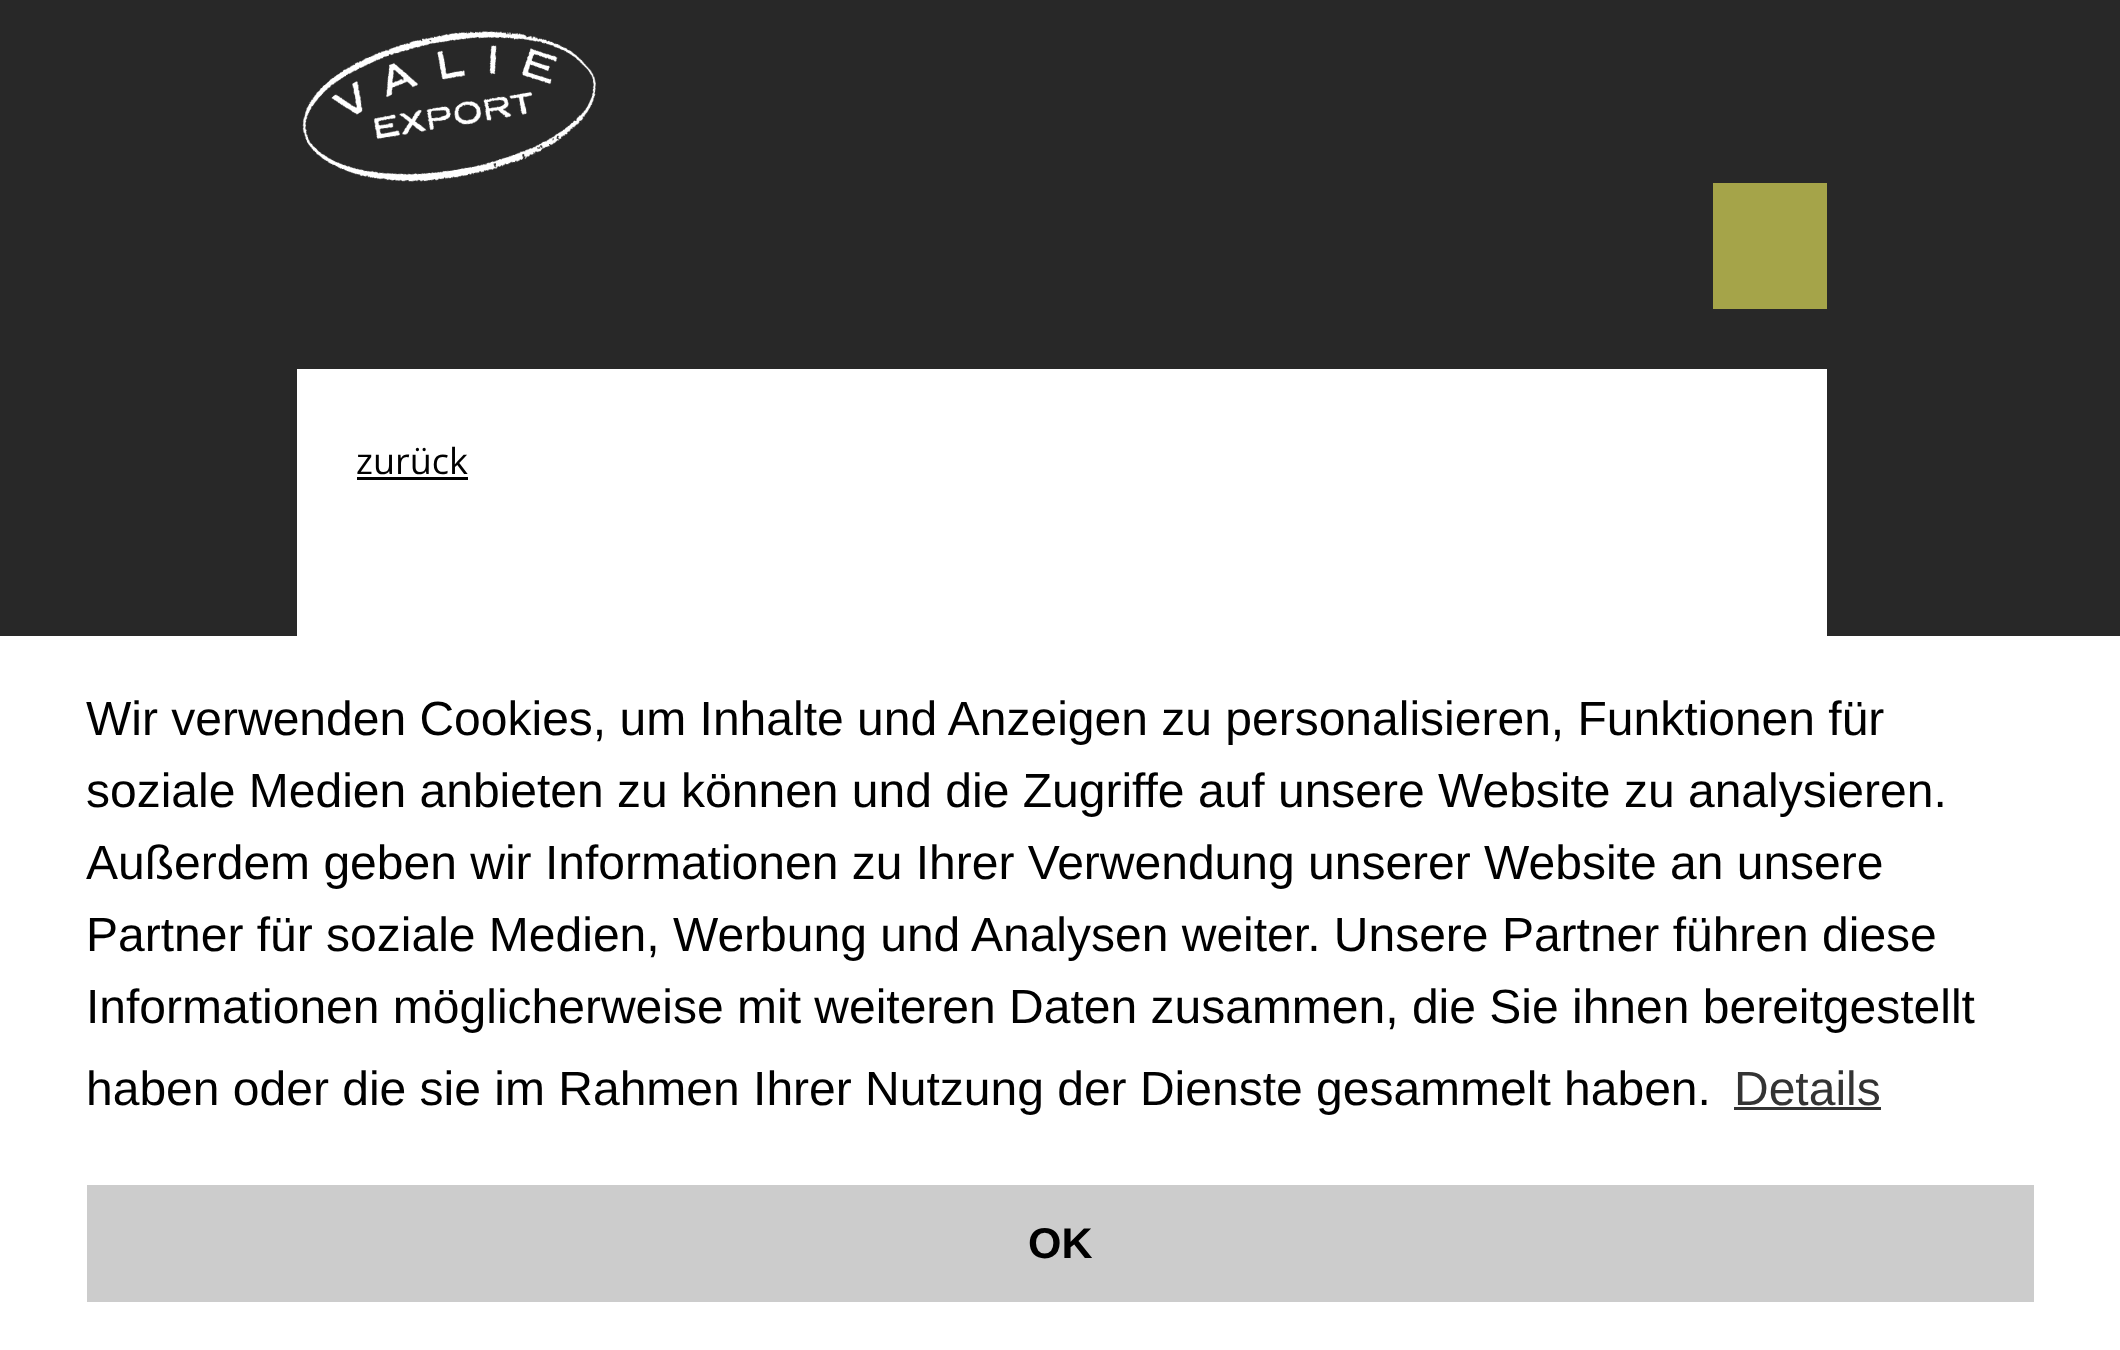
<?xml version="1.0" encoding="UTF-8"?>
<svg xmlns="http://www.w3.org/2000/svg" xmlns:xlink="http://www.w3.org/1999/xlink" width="2120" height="1350">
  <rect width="100%" height="100%" fill="#282828" />
  <image x="302" y="31" width="295" height="151" xlink:href="image1.png" />
  <rect x="1713" y="183" width="114" height="126" fill="#a5a449" />
  <rect x="297" y="369" width="1530" height="267" fill="#ffffff" />
  <rect x="357" y="477" width="111" height="3" fill="#000000" />
  <rect y="636" width="2120" height="714" fill="#ffffff" />
  <rect x="1734" y="1107" width="147" height="3" fill="#333333" />
  <rect x="87" y="1185" width="1947" height="117" fill="#cccccc" />
  <text x="356" y="474" style="font-family: Open Sans; font-size: 36px; fill: #000000">zurück</text>
  <text x="86" y="735" style="font-family: Liberation Sans; font-size: 48px; fill: #000000">Wir verwenden Cookies, um Inhalte und Anzeigen zu personalisieren, Funktionen für</text>
  <text x="86" y="807" style="font-family: Liberation Sans; font-size: 48px; fill: #000000">soziale Medien anbieten zu können und die Zugriffe auf unsere Website zu analysieren.</text>
  <text x="86" y="879" style="font-family: Liberation Sans; font-size: 48px; fill: #000000">Außerdem geben wir Informationen zu Ihrer Verwendung unserer Website an unsere</text>
  <text x="86" y="951" style="font-family: Liberation Sans; font-size: 48px; fill: #000000">Partner für soziale Medien, Werbung und Analysen weiter. Unsere Partner führen diese</text>
  <text x="86" y="1023" style="font-family: Liberation Sans; font-size: 48px; fill: #000000">Informationen möglicherweise mit weiteren Daten zusammen, die Sie ihnen bereitgestellt</text>
  <text x="86" y="1105" style="font-family: Liberation Sans; font-size: 48px; fill: #000000">haben oder die sie im Rahmen Ihrer Nutzung der Dienste gesammelt haben.</text>
  <text x="1734" y="1105" style="font-family: Liberation Sans; font-size: 48px; fill: #333333">Details</text>
  <text x="1028" y="1258" style="font-family: Liberation Sans; font-size: 43px; font-weight: bold; fill: #000000">OK</text>
</svg>
